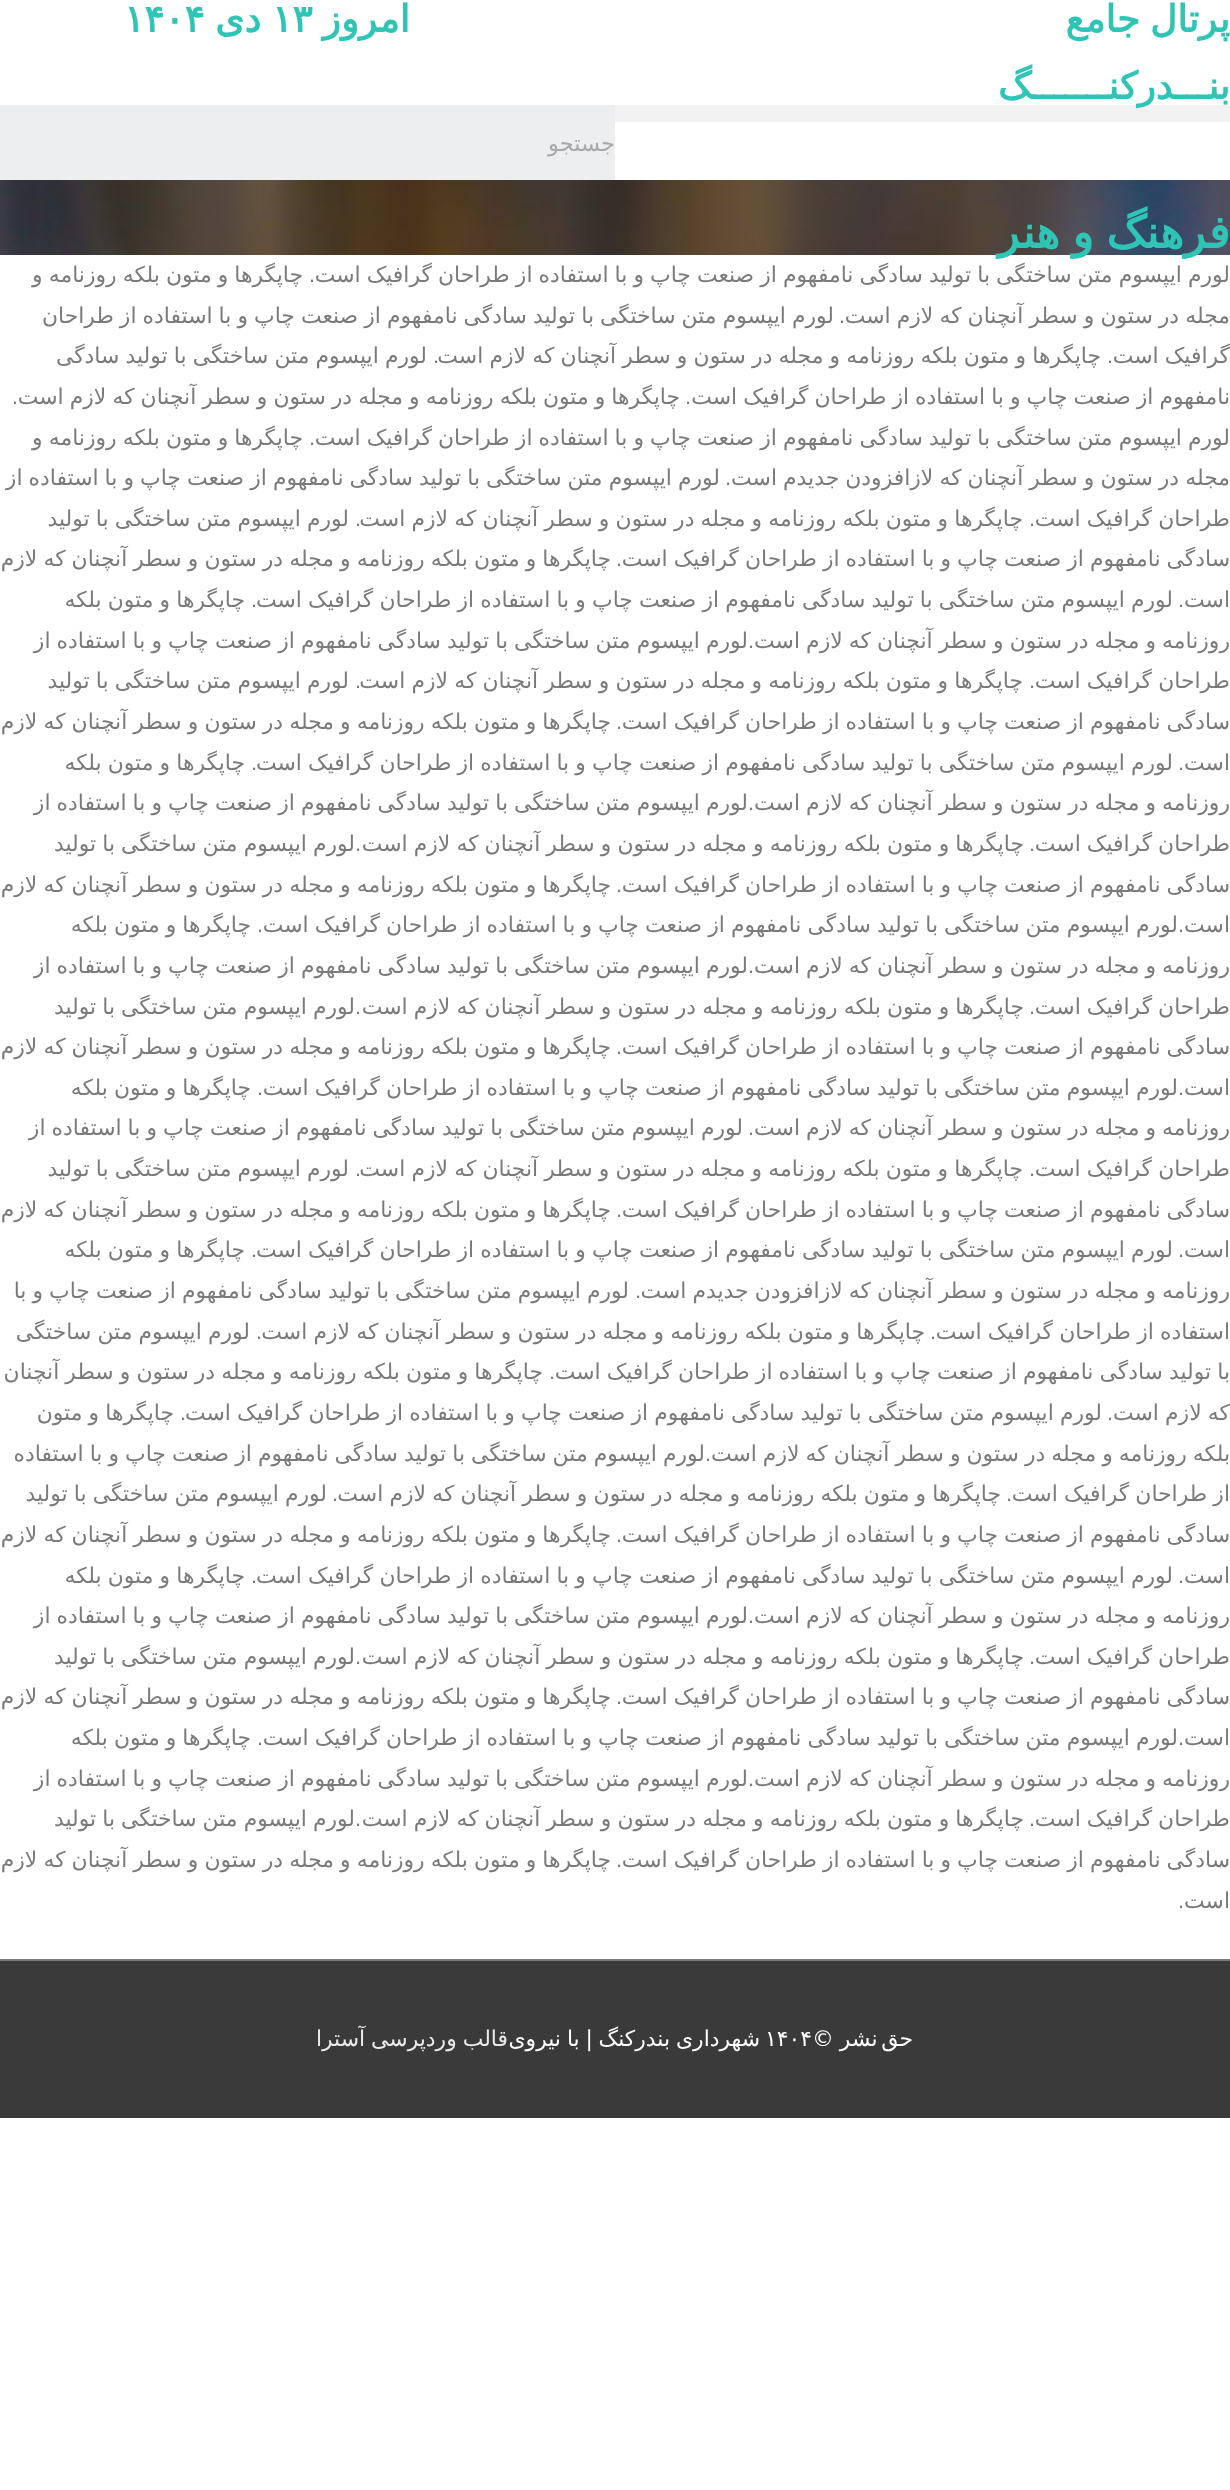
<?xml version="1.0" encoding="UTF-8"?>
<svg xmlns="http://www.w3.org/2000/svg" xmlns:xlink="http://www.w3.org/1999/xlink" width="1230" height="2490">
  <rect width="100%" height="100%" fill="#ffffff" />
  <rect x="615" y="105" width="615" height="17" fill="#000000" fill-opacity="0.05" />
  <rect y="105" width="615" height="75" fill="#eceeef" />
  <image x="0" y="180" width="1230" height="75" xlink:href="image1.png" />
  <rect y="1959" width="1230" height="2" fill="#7a7a7a" />
  <rect y="1961" width="1230" height="157" fill="#3a3a3a" />
  <text x="1230" y="32" word-spacing="-2" style="font-family: DejaVu Sans; font-size: 37.5px; font-weight: bold; direction: rtl; fill: #2ec4b6">پرتال جامع</text>
  <text x="1230" y="99" style="font-family: DejaVu Sans; font-size: 37.5px; font-weight: bold; direction: rtl; fill: #2ec4b6">بنـــدرکنـــــــگ</text>
  <text x="410" y="32" style="font-family: DejaVu Sans; font-size: 37.5px; font-weight: bold; direction: rtl; fill: #2ec4b6">امروز</text>
  <text x="272" y="32" style="font-family: DejaVu Sans; font-size: 37.5px; font-weight: bold; fill: #2ec4b6">۱۳</text>
  <text x="261" y="32" style="font-family: DejaVu Sans; font-size: 37.5px; font-weight: bold; direction: rtl; fill: #2ec4b6">دی</text>
  <text x="124" y="32" style="font-family: DejaVu Sans; font-size: 37.5px; font-weight: bold; fill: #2ec4b6">۱۴۰۴</text>
  <text x="615" y="151" style="font-family: DejaVu Sans; font-size: 22.5px; direction: rtl; fill: #a8a8a9">جستجو</text>
  <text x="1230" y="248" word-spacing="-2" style="font-family: DejaVu Sans; font-size: 45px; font-weight: bold; direction: rtl; fill: #2ec4b6">فرهنگ و هنر</text>
  <text x="1230" y="282" word-spacing="-0.9" style="font-family: DejaVu Sans; font-size: 21.9px; direction: rtl; fill: #7a7a7a">لورم ایپسوم متن ساختگی با تولید سادگی نامفهوم از صنعت چاپ و با استفاده از طراحان گرافیک است</text>
  <text x="315" y="282" style="font-family: Liberation Sans; font-size: 21.9px; direction: rtl; fill: #7a7a7a">.</text>
  <text x="303" y="282" word-spacing="-0.9" style="font-family: DejaVu Sans; font-size: 21.9px; direction: rtl; fill: #7a7a7a">چاپگرها و متون بلکه روزنامه و</text>
  <text x="1230" y="323" word-spacing="-0.9" style="font-family: DejaVu Sans; font-size: 21.9px; direction: rtl; fill: #7a7a7a">مجله در ستون و سطر آنچنان که لازم است</text>
  <text x="845" y="323" style="font-family: Liberation Sans; font-size: 21.9px; direction: rtl; fill: #7a7a7a">.</text>
  <text x="834" y="323" word-spacing="-0.9" style="font-family: DejaVu Sans; font-size: 21.9px; direction: rtl; fill: #7a7a7a">لورم ایپسوم متن ساختگی با تولید سادگی نامفهوم از صنعت چاپ و با استفاده از طراحان</text>
  <text x="1230" y="363" word-spacing="-0.8" style="font-family: DejaVu Sans; font-size: 21.9px; direction: rtl; fill: #7a7a7a">گرافیک است</text>
  <text x="1113" y="363" style="font-family: Liberation Sans; font-size: 21.9px; direction: rtl; fill: #7a7a7a">.</text>
  <text x="1101" y="363" word-spacing="-0.8" style="font-family: DejaVu Sans; font-size: 21.9px; direction: rtl; fill: #7a7a7a">چاپگرها و متون بلکه روزنامه و مجله در ستون و سطر آنچنان که لازم است</text>
  <text x="439" y="363" style="font-family: Liberation Sans; font-size: 21.9px; direction: rtl; fill: #7a7a7a">.</text>
  <text x="427" y="363" word-spacing="-0.8" style="font-family: DejaVu Sans; font-size: 21.9px; direction: rtl; fill: #7a7a7a">لورم ایپسوم متن ساختگی با تولید سادگی</text>
  <text x="1230" y="404" word-spacing="-0.9" style="font-family: DejaVu Sans; font-size: 21.9px; direction: rtl; fill: #7a7a7a">نامفهوم از صنعت چاپ و با استفاده از طراحان گرافیک است</text>
  <text x="691" y="404" style="font-family: Liberation Sans; font-size: 21.9px; direction: rtl; fill: #7a7a7a">.</text>
  <text x="680" y="404" word-spacing="-0.9" style="font-family: DejaVu Sans; font-size: 21.9px; direction: rtl; fill: #7a7a7a">چاپگرها و متون بلکه روزنامه و مجله در ستون و سطر آنچنان که لازم است</text>
  <text x="18" y="404" style="font-family: Liberation Sans; font-size: 21.9px; direction: rtl; fill: #7a7a7a">.</text>
  <text x="1230" y="445" word-spacing="-0.9" style="font-family: DejaVu Sans; font-size: 21.9px; direction: rtl; fill: #7a7a7a">لورم ایپسوم متن ساختگی با تولید سادگی نامفهوم از صنعت چاپ و با استفاده از طراحان گرافیک است</text>
  <text x="315" y="445" style="font-family: Liberation Sans; font-size: 21.9px; direction: rtl; fill: #7a7a7a">.</text>
  <text x="303" y="445" word-spacing="-0.9" style="font-family: DejaVu Sans; font-size: 21.9px; direction: rtl; fill: #7a7a7a">چاپگرها و متون بلکه روزنامه و</text>
  <text x="1230" y="485" word-spacing="-0.9" style="font-family: DejaVu Sans; font-size: 21.9px; direction: rtl; fill: #7a7a7a">مجله در ستون و سطر آنچنان که لازافزودن جدیدم است</text>
  <text x="731" y="485" style="font-family: Liberation Sans; font-size: 21.9px; direction: rtl; fill: #7a7a7a">.</text>
  <text x="720" y="485" word-spacing="-0.9" style="font-family: DejaVu Sans; font-size: 21.9px; direction: rtl; fill: #7a7a7a">لورم ایپسوم متن ساختگی با تولید سادگی نامفهوم از صنعت چاپ و با استفاده از</text>
  <text x="1230" y="526" word-spacing="-0.8" style="font-family: DejaVu Sans; font-size: 21.9px; direction: rtl; fill: #7a7a7a">طراحان گرافیک است</text>
  <text x="1035" y="526" style="font-family: Liberation Sans; font-size: 21.9px; direction: rtl; fill: #7a7a7a">.</text>
  <text x="1023" y="526" word-spacing="-0.8" style="font-family: DejaVu Sans; font-size: 21.9px; direction: rtl; fill: #7a7a7a">چاپگرها و متون بلکه روزنامه و مجله در ستون و سطر آنچنان که لازم است</text>
  <text x="361" y="526" style="font-family: Liberation Sans; font-size: 21.9px; direction: rtl; fill: #7a7a7a">.</text>
  <text x="349" y="526" word-spacing="-0.8" style="font-family: DejaVu Sans; font-size: 21.9px; direction: rtl; fill: #7a7a7a">لورم ایپسوم متن ساختگی با تولید</text>
  <text x="1230" y="566" word-spacing="-0.9" style="font-family: DejaVu Sans; font-size: 21.9px; direction: rtl; fill: #7a7a7a">سادگی نامفهوم از صنعت چاپ و با استفاده از طراحان گرافیک است</text>
  <text x="622" y="566" style="font-family: Liberation Sans; font-size: 21.9px; direction: rtl; fill: #7a7a7a">.</text>
  <text x="611" y="566" word-spacing="-0.9" style="font-family: DejaVu Sans; font-size: 21.9px; direction: rtl; fill: #7a7a7a">چاپگرها و متون بلکه روزنامه و مجله در ستون و سطر آنچنان که لازم</text>
  <text x="1230" y="607" style="font-family: DejaVu Sans; font-size: 21.9px; direction: rtl; fill: #7a7a7a">است</text>
  <text x="1184" y="607" style="font-family: Liberation Sans; font-size: 21.9px; direction: rtl; fill: #7a7a7a">.</text>
  <text x="1173" y="607" word-spacing="-0.8" style="font-family: DejaVu Sans; font-size: 21.9px; direction: rtl; fill: #7a7a7a">لورم ایپسوم متن ساختگی با تولید سادگی نامفهوم از صنعت چاپ و با استفاده از طراحان گرافیک است</text>
  <text x="257" y="607" style="font-family: Liberation Sans; font-size: 21.9px; direction: rtl; fill: #7a7a7a">.</text>
  <text x="245" y="607" word-spacing="-0.8" style="font-family: DejaVu Sans; font-size: 21.9px; direction: rtl; fill: #7a7a7a">چاپگرها و متون بلکه</text>
  <text x="1230" y="648" word-spacing="-0.9" style="font-family: DejaVu Sans; font-size: 21.9px; direction: rtl; fill: #7a7a7a">روزنامه و مجله در ستون و سطر آنچنان که لازم است</text>
  <text x="754" y="648" style="font-family: Liberation Sans; font-size: 21.9px; direction: rtl; fill: #7a7a7a">.</text>
  <text x="748" y="648" word-spacing="-0.9" style="font-family: DejaVu Sans; font-size: 21.9px; direction: rtl; fill: #7a7a7a">لورم ایپسوم متن ساختگی با تولید سادگی نامفهوم از صنعت چاپ و با استفاده از</text>
  <text x="1230" y="688" word-spacing="-0.8" style="font-family: DejaVu Sans; font-size: 21.9px; direction: rtl; fill: #7a7a7a">طراحان گرافیک است</text>
  <text x="1035" y="688" style="font-family: Liberation Sans; font-size: 21.9px; direction: rtl; fill: #7a7a7a">.</text>
  <text x="1023" y="688" word-spacing="-0.8" style="font-family: DejaVu Sans; font-size: 21.9px; direction: rtl; fill: #7a7a7a">چاپگرها و متون بلکه روزنامه و مجله در ستون و سطر آنچنان که لازم است</text>
  <text x="361" y="688" style="font-family: Liberation Sans; font-size: 21.9px; direction: rtl; fill: #7a7a7a">.</text>
  <text x="349" y="688" word-spacing="-0.8" style="font-family: DejaVu Sans; font-size: 21.9px; direction: rtl; fill: #7a7a7a">لورم ایپسوم متن ساختگی با تولید</text>
  <text x="1230" y="729" word-spacing="-0.9" style="font-family: DejaVu Sans; font-size: 21.9px; direction: rtl; fill: #7a7a7a">سادگی نامفهوم از صنعت چاپ و با استفاده از طراحان گرافیک است</text>
  <text x="622" y="729" style="font-family: Liberation Sans; font-size: 21.9px; direction: rtl; fill: #7a7a7a">.</text>
  <text x="611" y="729" word-spacing="-0.9" style="font-family: DejaVu Sans; font-size: 21.9px; direction: rtl; fill: #7a7a7a">چاپگرها و متون بلکه روزنامه و مجله در ستون و سطر آنچنان که لازم</text>
  <text x="1230" y="770" style="font-family: DejaVu Sans; font-size: 21.9px; direction: rtl; fill: #7a7a7a">است</text>
  <text x="1184" y="770" style="font-family: Liberation Sans; font-size: 21.9px; direction: rtl; fill: #7a7a7a">.</text>
  <text x="1173" y="770" word-spacing="-0.8" style="font-family: DejaVu Sans; font-size: 21.9px; direction: rtl; fill: #7a7a7a">لورم ایپسوم متن ساختگی با تولید سادگی نامفهوم از صنعت چاپ و با استفاده از طراحان گرافیک است</text>
  <text x="257" y="770" style="font-family: Liberation Sans; font-size: 21.9px; direction: rtl; fill: #7a7a7a">.</text>
  <text x="245" y="770" word-spacing="-0.8" style="font-family: DejaVu Sans; font-size: 21.9px; direction: rtl; fill: #7a7a7a">چاپگرها و متون بلکه</text>
  <text x="1230" y="810" word-spacing="-0.9" style="font-family: DejaVu Sans; font-size: 21.9px; direction: rtl; fill: #7a7a7a">روزنامه و مجله در ستون و سطر آنچنان که لازم است</text>
  <text x="754" y="810" style="font-family: Liberation Sans; font-size: 21.9px; direction: rtl; fill: #7a7a7a">.</text>
  <text x="748" y="810" word-spacing="-0.9" style="font-family: DejaVu Sans; font-size: 21.9px; direction: rtl; fill: #7a7a7a">لورم ایپسوم متن ساختگی با تولید سادگی نامفهوم از صنعت چاپ و با استفاده از</text>
  <text x="1230" y="851" word-spacing="-0.9" style="font-family: DejaVu Sans; font-size: 21.9px; direction: rtl; fill: #7a7a7a">طراحان گرافیک است</text>
  <text x="1035" y="851" style="font-family: Liberation Sans; font-size: 21.9px; direction: rtl; fill: #7a7a7a">.</text>
  <text x="1024" y="851" word-spacing="-0.9" style="font-family: DejaVu Sans; font-size: 21.9px; direction: rtl; fill: #7a7a7a">چاپگرها و متون بلکه روزنامه و مجله در ستون و سطر آنچنان که لازم است</text>
  <text x="361" y="851" style="font-family: Liberation Sans; font-size: 21.9px; direction: rtl; fill: #7a7a7a">.</text>
  <text x="355" y="851" word-spacing="-0.9" style="font-family: DejaVu Sans; font-size: 21.9px; direction: rtl; fill: #7a7a7a">لورم ایپسوم متن ساختگی با تولید</text>
  <text x="1230" y="892" word-spacing="-0.9" style="font-family: DejaVu Sans; font-size: 21.9px; direction: rtl; fill: #7a7a7a">سادگی نامفهوم از صنعت چاپ و با استفاده از طراحان گرافیک است</text>
  <text x="622" y="892" style="font-family: Liberation Sans; font-size: 21.9px; direction: rtl; fill: #7a7a7a">.</text>
  <text x="611" y="892" word-spacing="-0.9" style="font-family: DejaVu Sans; font-size: 21.9px; direction: rtl; fill: #7a7a7a">چاپگرها و متون بلکه روزنامه و مجله در ستون و سطر آنچنان که لازم</text>
  <text x="1230" y="932" style="font-family: DejaVu Sans; font-size: 21.9px; direction: rtl; fill: #7a7a7a">است</text>
  <text x="1184" y="932" style="font-family: Liberation Sans; font-size: 21.9px; direction: rtl; fill: #7a7a7a">.</text>
  <text x="1178" y="932" word-spacing="-0.9" style="font-family: DejaVu Sans; font-size: 21.9px; direction: rtl; fill: #7a7a7a">لورم ایپسوم متن ساختگی با تولید سادگی نامفهوم از صنعت چاپ و با استفاده از طراحان گرافیک است</text>
  <text x="263" y="932" style="font-family: Liberation Sans; font-size: 21.9px; direction: rtl; fill: #7a7a7a">.</text>
  <text x="251" y="932" word-spacing="-0.9" style="font-family: DejaVu Sans; font-size: 21.9px; direction: rtl; fill: #7a7a7a">چاپگرها و متون بلکه</text>
  <text x="1230" y="973" word-spacing="-0.9" style="font-family: DejaVu Sans; font-size: 21.9px; direction: rtl; fill: #7a7a7a">روزنامه و مجله در ستون و سطر آنچنان که لازم است</text>
  <text x="754" y="973" style="font-family: Liberation Sans; font-size: 21.9px; direction: rtl; fill: #7a7a7a">.</text>
  <text x="748" y="973" word-spacing="-0.9" style="font-family: DejaVu Sans; font-size: 21.9px; direction: rtl; fill: #7a7a7a">لورم ایپسوم متن ساختگی با تولید سادگی نامفهوم از صنعت چاپ و با استفاده از</text>
  <text x="1230" y="1014" word-spacing="-0.9" style="font-family: DejaVu Sans; font-size: 21.9px; direction: rtl; fill: #7a7a7a">طراحان گرافیک است</text>
  <text x="1035" y="1014" style="font-family: Liberation Sans; font-size: 21.9px; direction: rtl; fill: #7a7a7a">.</text>
  <text x="1024" y="1014" word-spacing="-0.9" style="font-family: DejaVu Sans; font-size: 21.9px; direction: rtl; fill: #7a7a7a">چاپگرها و متون بلکه روزنامه و مجله در ستون و سطر آنچنان که لازم است</text>
  <text x="361" y="1014" style="font-family: Liberation Sans; font-size: 21.9px; direction: rtl; fill: #7a7a7a">.</text>
  <text x="355" y="1014" word-spacing="-0.9" style="font-family: DejaVu Sans; font-size: 21.9px; direction: rtl; fill: #7a7a7a">لورم ایپسوم متن ساختگی با تولید</text>
  <text x="1230" y="1054" word-spacing="-0.9" style="font-family: DejaVu Sans; font-size: 21.9px; direction: rtl; fill: #7a7a7a">سادگی نامفهوم از صنعت چاپ و با استفاده از طراحان گرافیک است</text>
  <text x="622" y="1054" style="font-family: Liberation Sans; font-size: 21.9px; direction: rtl; fill: #7a7a7a">.</text>
  <text x="611" y="1054" word-spacing="-0.9" style="font-family: DejaVu Sans; font-size: 21.9px; direction: rtl; fill: #7a7a7a">چاپگرها و متون بلکه روزنامه و مجله در ستون و سطر آنچنان که لازم</text>
  <text x="1230" y="1095" style="font-family: DejaVu Sans; font-size: 21.9px; direction: rtl; fill: #7a7a7a">است</text>
  <text x="1184" y="1095" style="font-family: Liberation Sans; font-size: 21.9px; direction: rtl; fill: #7a7a7a">.</text>
  <text x="1178" y="1095" word-spacing="-0.9" style="font-family: DejaVu Sans; font-size: 21.9px; direction: rtl; fill: #7a7a7a">لورم ایپسوم متن ساختگی با تولید سادگی نامفهوم از صنعت چاپ و با استفاده از طراحان گرافیک است</text>
  <text x="263" y="1095" style="font-family: Liberation Sans; font-size: 21.9px; direction: rtl; fill: #7a7a7a">.</text>
  <text x="251" y="1095" word-spacing="-0.9" style="font-family: DejaVu Sans; font-size: 21.9px; direction: rtl; fill: #7a7a7a">چاپگرها و متون بلکه</text>
  <text x="1230" y="1135" word-spacing="-0.9" style="font-family: DejaVu Sans; font-size: 21.9px; direction: rtl; fill: #7a7a7a">روزنامه و مجله در ستون و سطر آنچنان که لازم است</text>
  <text x="754" y="1135" style="font-family: Liberation Sans; font-size: 21.9px; direction: rtl; fill: #7a7a7a">.</text>
  <text x="743" y="1135" word-spacing="-0.9" style="font-family: DejaVu Sans; font-size: 21.9px; direction: rtl; fill: #7a7a7a">لورم ایپسوم متن ساختگی با تولید سادگی نامفهوم از صنعت چاپ و با استفاده از</text>
  <text x="1230" y="1176" word-spacing="-0.8" style="font-family: DejaVu Sans; font-size: 21.9px; direction: rtl; fill: #7a7a7a">طراحان گرافیک است</text>
  <text x="1035" y="1176" style="font-family: Liberation Sans; font-size: 21.9px; direction: rtl; fill: #7a7a7a">.</text>
  <text x="1023" y="1176" word-spacing="-0.8" style="font-family: DejaVu Sans; font-size: 21.9px; direction: rtl; fill: #7a7a7a">چاپگرها و متون بلکه روزنامه و مجله در ستون و سطر آنچنان که لازم است</text>
  <text x="361" y="1176" style="font-family: Liberation Sans; font-size: 21.9px; direction: rtl; fill: #7a7a7a">.</text>
  <text x="349" y="1176" word-spacing="-0.8" style="font-family: DejaVu Sans; font-size: 21.9px; direction: rtl; fill: #7a7a7a">لورم ایپسوم متن ساختگی با تولید</text>
  <text x="1230" y="1217" word-spacing="-0.9" style="font-family: DejaVu Sans; font-size: 21.9px; direction: rtl; fill: #7a7a7a">سادگی نامفهوم از صنعت چاپ و با استفاده از طراحان گرافیک است</text>
  <text x="622" y="1217" style="font-family: Liberation Sans; font-size: 21.9px; direction: rtl; fill: #7a7a7a">.</text>
  <text x="611" y="1217" word-spacing="-0.9" style="font-family: DejaVu Sans; font-size: 21.9px; direction: rtl; fill: #7a7a7a">چاپگرها و متون بلکه روزنامه و مجله در ستون و سطر آنچنان که لازم</text>
  <text x="1230" y="1257" style="font-family: DejaVu Sans; font-size: 21.9px; direction: rtl; fill: #7a7a7a">است</text>
  <text x="1184" y="1257" style="font-family: Liberation Sans; font-size: 21.9px; direction: rtl; fill: #7a7a7a">.</text>
  <text x="1173" y="1257" word-spacing="-0.8" style="font-family: DejaVu Sans; font-size: 21.9px; direction: rtl; fill: #7a7a7a">لورم ایپسوم متن ساختگی با تولید سادگی نامفهوم از صنعت چاپ و با استفاده از طراحان گرافیک است</text>
  <text x="257" y="1257" style="font-family: Liberation Sans; font-size: 21.9px; direction: rtl; fill: #7a7a7a">.</text>
  <text x="245" y="1257" word-spacing="-0.8" style="font-family: DejaVu Sans; font-size: 21.9px; direction: rtl; fill: #7a7a7a">چاپگرها و متون بلکه</text>
  <text x="1230" y="1298" word-spacing="-0.9" style="font-family: DejaVu Sans; font-size: 21.9px; direction: rtl; fill: #7a7a7a">روزنامه و مجله در ستون و سطر آنچنان که لازافزودن جدیدم است</text>
  <text x="641" y="1298" style="font-family: Liberation Sans; font-size: 21.9px; direction: rtl; fill: #7a7a7a">.</text>
  <text x="629" y="1298" word-spacing="-0.9" style="font-family: DejaVu Sans; font-size: 21.9px; direction: rtl; fill: #7a7a7a">لورم ایپسوم متن ساختگی با تولید سادگی نامفهوم از صنعت چاپ و با</text>
  <text x="1230" y="1339" word-spacing="-0.8" style="font-family: DejaVu Sans; font-size: 21.9px; direction: rtl; fill: #7a7a7a">استفاده از طراحان گرافیک است</text>
  <text x="936" y="1339" style="font-family: Liberation Sans; font-size: 21.9px; direction: rtl; fill: #7a7a7a">.</text>
  <text x="925" y="1339" word-spacing="-0.8" style="font-family: DejaVu Sans; font-size: 21.9px; direction: rtl; fill: #7a7a7a">چاپگرها و متون بلکه روزنامه و مجله در ستون و سطر آنچنان که لازم است</text>
  <text x="262" y="1339" style="font-family: Liberation Sans; font-size: 21.9px; direction: rtl; fill: #7a7a7a">.</text>
  <text x="250" y="1339" word-spacing="-0.8" style="font-family: DejaVu Sans; font-size: 21.9px; direction: rtl; fill: #7a7a7a">لورم ایپسوم متن ساختگی</text>
  <text x="1230" y="1379" word-spacing="-0.9" style="font-family: DejaVu Sans; font-size: 21.9px; direction: rtl; fill: #7a7a7a">با تولید سادگی نامفهوم از صنعت چاپ و با استفاده از طراحان گرافیک است</text>
  <text x="555" y="1379" style="font-family: Liberation Sans; font-size: 21.9px; direction: rtl; fill: #7a7a7a">.</text>
  <text x="543" y="1379" word-spacing="-0.9" style="font-family: DejaVu Sans; font-size: 21.9px; direction: rtl; fill: #7a7a7a">چاپگرها و متون بلکه روزنامه و مجله در ستون و سطر آنچنان</text>
  <text x="1230" y="1420" word-spacing="-0.8" style="font-family: DejaVu Sans; font-size: 21.9px; direction: rtl; fill: #7a7a7a">که لازم است</text>
  <text x="1113" y="1420" style="font-family: Liberation Sans; font-size: 21.9px; direction: rtl; fill: #7a7a7a">.</text>
  <text x="1102" y="1420" word-spacing="-0.8" style="font-family: DejaVu Sans; font-size: 21.9px; direction: rtl; fill: #7a7a7a">لورم ایپسوم متن ساختگی با تولید سادگی نامفهوم از صنعت چاپ و با استفاده از طراحان گرافیک است</text>
  <text x="186" y="1420" style="font-family: Liberation Sans; font-size: 21.9px; direction: rtl; fill: #7a7a7a">.</text>
  <text x="174" y="1420" word-spacing="-0.8" style="font-family: DejaVu Sans; font-size: 21.9px; direction: rtl; fill: #7a7a7a">چاپگرها و متون</text>
  <text x="1230" y="1461" word-spacing="-0.9" style="font-family: DejaVu Sans; font-size: 21.9px; direction: rtl; fill: #7a7a7a">بلکه روزنامه و مجله در ستون و سطر آنچنان که لازم است</text>
  <text x="711" y="1461" style="font-family: Liberation Sans; font-size: 21.9px; direction: rtl; fill: #7a7a7a">.</text>
  <text x="705" y="1461" word-spacing="-0.9" style="font-family: DejaVu Sans; font-size: 21.9px; direction: rtl; fill: #7a7a7a">لورم ایپسوم متن ساختگی با تولید سادگی نامفهوم از صنعت چاپ و با استفاده</text>
  <text x="1230" y="1501" word-spacing="-0.8" style="font-family: DejaVu Sans; font-size: 21.9px; direction: rtl; fill: #7a7a7a">از طراحان گرافیک است</text>
  <text x="1012" y="1501" style="font-family: Liberation Sans; font-size: 21.9px; direction: rtl; fill: #7a7a7a">.</text>
  <text x="1001" y="1501" word-spacing="-0.8" style="font-family: DejaVu Sans; font-size: 21.9px; direction: rtl; fill: #7a7a7a">چاپگرها و متون بلکه روزنامه و مجله در ستون و سطر آنچنان که لازم است</text>
  <text x="338" y="1501" style="font-family: Liberation Sans; font-size: 21.9px; direction: rtl; fill: #7a7a7a">.</text>
  <text x="327" y="1501" word-spacing="-0.8" style="font-family: DejaVu Sans; font-size: 21.9px; direction: rtl; fill: #7a7a7a">لورم ایپسوم متن ساختگی با تولید</text>
  <text x="1230" y="1542" word-spacing="-0.9" style="font-family: DejaVu Sans; font-size: 21.9px; direction: rtl; fill: #7a7a7a">سادگی نامفهوم از صنعت چاپ و با استفاده از طراحان گرافیک است</text>
  <text x="622" y="1542" style="font-family: Liberation Sans; font-size: 21.9px; direction: rtl; fill: #7a7a7a">.</text>
  <text x="611" y="1542" word-spacing="-0.9" style="font-family: DejaVu Sans; font-size: 21.9px; direction: rtl; fill: #7a7a7a">چاپگرها و متون بلکه روزنامه و مجله در ستون و سطر آنچنان که لازم</text>
  <text x="1230" y="1583" style="font-family: DejaVu Sans; font-size: 21.9px; direction: rtl; fill: #7a7a7a">است</text>
  <text x="1184" y="1583" style="font-family: Liberation Sans; font-size: 21.9px; direction: rtl; fill: #7a7a7a">.</text>
  <text x="1173" y="1583" word-spacing="-0.8" style="font-family: DejaVu Sans; font-size: 21.9px; direction: rtl; fill: #7a7a7a">لورم ایپسوم متن ساختگی با تولید سادگی نامفهوم از صنعت چاپ و با استفاده از طراحان گرافیک است</text>
  <text x="257" y="1583" style="font-family: Liberation Sans; font-size: 21.9px; direction: rtl; fill: #7a7a7a">.</text>
  <text x="245" y="1583" word-spacing="-0.8" style="font-family: DejaVu Sans; font-size: 21.9px; direction: rtl; fill: #7a7a7a">چاپگرها و متون بلکه</text>
  <text x="1230" y="1623" word-spacing="-0.9" style="font-family: DejaVu Sans; font-size: 21.9px; direction: rtl; fill: #7a7a7a">روزنامه و مجله در ستون و سطر آنچنان که لازم است</text>
  <text x="754" y="1623" style="font-family: Liberation Sans; font-size: 21.9px; direction: rtl; fill: #7a7a7a">.</text>
  <text x="748" y="1623" word-spacing="-0.9" style="font-family: DejaVu Sans; font-size: 21.9px; direction: rtl; fill: #7a7a7a">لورم ایپسوم متن ساختگی با تولید سادگی نامفهوم از صنعت چاپ و با استفاده از</text>
  <text x="1230" y="1664" word-spacing="-0.9" style="font-family: DejaVu Sans; font-size: 21.9px; direction: rtl; fill: #7a7a7a">طراحان گرافیک است</text>
  <text x="1035" y="1664" style="font-family: Liberation Sans; font-size: 21.9px; direction: rtl; fill: #7a7a7a">.</text>
  <text x="1024" y="1664" word-spacing="-0.9" style="font-family: DejaVu Sans; font-size: 21.9px; direction: rtl; fill: #7a7a7a">چاپگرها و متون بلکه روزنامه و مجله در ستون و سطر آنچنان که لازم است</text>
  <text x="361" y="1664" style="font-family: Liberation Sans; font-size: 21.9px; direction: rtl; fill: #7a7a7a">.</text>
  <text x="355" y="1664" word-spacing="-0.9" style="font-family: DejaVu Sans; font-size: 21.9px; direction: rtl; fill: #7a7a7a">لورم ایپسوم متن ساختگی با تولید</text>
  <text x="1230" y="1704" word-spacing="-0.9" style="font-family: DejaVu Sans; font-size: 21.9px; direction: rtl; fill: #7a7a7a">سادگی نامفهوم از صنعت چاپ و با استفاده از طراحان گرافیک است</text>
  <text x="622" y="1704" style="font-family: Liberation Sans; font-size: 21.9px; direction: rtl; fill: #7a7a7a">.</text>
  <text x="611" y="1704" word-spacing="-0.9" style="font-family: DejaVu Sans; font-size: 21.9px; direction: rtl; fill: #7a7a7a">چاپگرها و متون بلکه روزنامه و مجله در ستون و سطر آنچنان که لازم</text>
  <text x="1230" y="1745" style="font-family: DejaVu Sans; font-size: 21.9px; direction: rtl; fill: #7a7a7a">است</text>
  <text x="1184" y="1745" style="font-family: Liberation Sans; font-size: 21.9px; direction: rtl; fill: #7a7a7a">.</text>
  <text x="1178" y="1745" word-spacing="-0.9" style="font-family: DejaVu Sans; font-size: 21.9px; direction: rtl; fill: #7a7a7a">لورم ایپسوم متن ساختگی با تولید سادگی نامفهوم از صنعت چاپ و با استفاده از طراحان گرافیک است</text>
  <text x="263" y="1745" style="font-family: Liberation Sans; font-size: 21.9px; direction: rtl; fill: #7a7a7a">.</text>
  <text x="251" y="1745" word-spacing="-0.9" style="font-family: DejaVu Sans; font-size: 21.9px; direction: rtl; fill: #7a7a7a">چاپگرها و متون بلکه</text>
  <text x="1230" y="1786" word-spacing="-0.9" style="font-family: DejaVu Sans; font-size: 21.9px; direction: rtl; fill: #7a7a7a">روزنامه و مجله در ستون و سطر آنچنان که لازم است</text>
  <text x="754" y="1786" style="font-family: Liberation Sans; font-size: 21.9px; direction: rtl; fill: #7a7a7a">.</text>
  <text x="748" y="1786" word-spacing="-0.9" style="font-family: DejaVu Sans; font-size: 21.9px; direction: rtl; fill: #7a7a7a">لورم ایپسوم متن ساختگی با تولید سادگی نامفهوم از صنعت چاپ و با استفاده از</text>
  <text x="1230" y="1826" word-spacing="-0.9" style="font-family: DejaVu Sans; font-size: 21.9px; direction: rtl; fill: #7a7a7a">طراحان گرافیک است</text>
  <text x="1035" y="1826" style="font-family: Liberation Sans; font-size: 21.9px; direction: rtl; fill: #7a7a7a">.</text>
  <text x="1024" y="1826" word-spacing="-0.9" style="font-family: DejaVu Sans; font-size: 21.9px; direction: rtl; fill: #7a7a7a">چاپگرها و متون بلکه روزنامه و مجله در ستون و سطر آنچنان که لازم است</text>
  <text x="361" y="1826" style="font-family: Liberation Sans; font-size: 21.9px; direction: rtl; fill: #7a7a7a">.</text>
  <text x="355" y="1826" word-spacing="-0.9" style="font-family: DejaVu Sans; font-size: 21.9px; direction: rtl; fill: #7a7a7a">لورم ایپسوم متن ساختگی با تولید</text>
  <text x="1230" y="1867" word-spacing="-0.9" style="font-family: DejaVu Sans; font-size: 21.9px; direction: rtl; fill: #7a7a7a">سادگی نامفهوم از صنعت چاپ و با استفاده از طراحان گرافیک است</text>
  <text x="622" y="1867" style="font-family: Liberation Sans; font-size: 21.9px; direction: rtl; fill: #7a7a7a">.</text>
  <text x="611" y="1867" word-spacing="-0.9" style="font-family: DejaVu Sans; font-size: 21.9px; direction: rtl; fill: #7a7a7a">چاپگرها و متون بلکه روزنامه و مجله در ستون و سطر آنچنان که لازم</text>
  <text x="1230" y="1908" style="font-family: DejaVu Sans; font-size: 21.9px; direction: rtl; fill: #7a7a7a">است</text>
  <text x="1184" y="1908" style="font-family: Liberation Sans; font-size: 21.9px; direction: rtl; fill: #7a7a7a">.</text>
  <text x="913" y="2046" word-spacing="-1" style="font-family: DejaVu Sans; font-size: 21.9px; direction: rtl; fill: #ffffff">حق نشر ©</text>
  <text x="765" y="2046" style="font-family: DejaVu Sans; font-size: 21.9px; fill: #ffffff">۱۴۰۴</text>
  <text x="760" y="2046" word-spacing="-1" style="font-family: DejaVu Sans; font-size: 21.9px; direction: rtl; fill: #ffffff">شهرداری بندرکنگ</text>
  <text x="593" y="2046" word-spacing="-1" style="font-family: DejaVu Sans; font-size: 21.9px; direction: rtl; fill: #ffffff">| با نیروی</text>
  <text x="508" y="2046" word-spacing="-1" style="font-family: DejaVu Sans; font-size: 21.9px; direction: rtl; fill: #eaeaea">قالب وردپرسی آسترا</text>
</svg>
